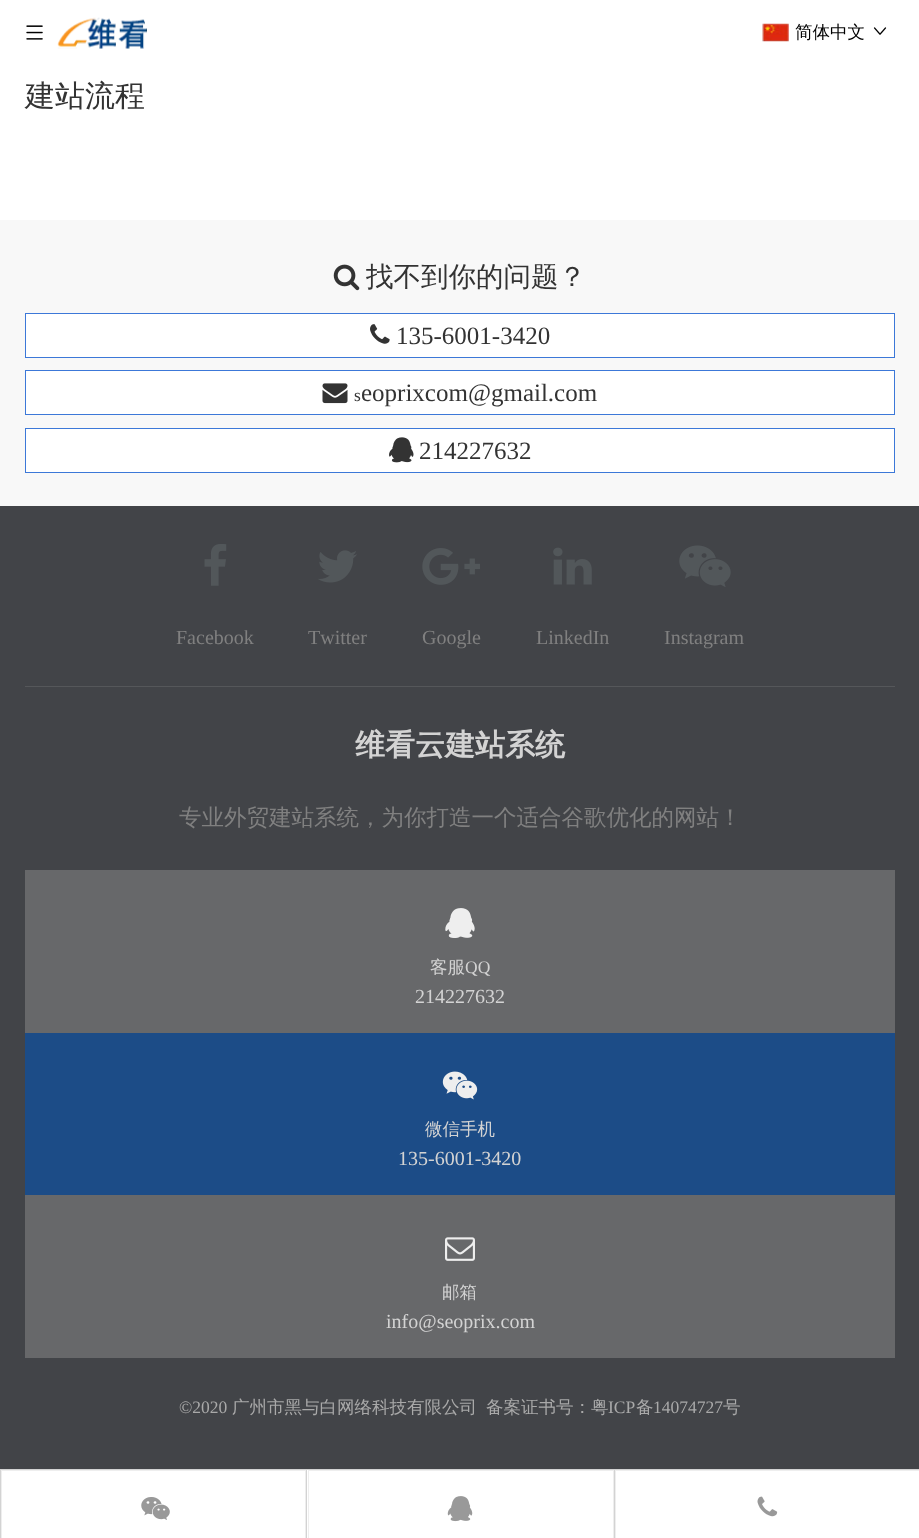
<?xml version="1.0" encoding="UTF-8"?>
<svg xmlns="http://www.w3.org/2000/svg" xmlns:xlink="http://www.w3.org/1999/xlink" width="919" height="1538">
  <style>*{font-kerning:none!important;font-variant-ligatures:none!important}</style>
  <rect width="100%" height="100%" fill="#ffffff" />
  <image x="26" y="25" width="17" height="15" xlink:href="image1.png" />
  <image x="57" y="17" width="90" height="32" xlink:href="image2.png" />
  <image x="762" y="23" width="27" height="19" xlink:href="image3.png" />
  <image x="873" y="27" width="14" height="8" xlink:href="image4.png" />
  <rect y="220" width="919" height="286" fill="#f8f8f8" />
  <image x="333" y="264" width="27" height="27" xlink:href="image5.png" />
  <rect x="25.5" y="313.5" width="869" height="44" fill="#ffffff" stroke="#3c78d8" />
  <image x="370" y="324" width="20" height="20" xlink:href="image6.png" />
  <rect x="25.5" y="370.5" width="869" height="44" fill="#ffffff" stroke="#3c78d8" />
  <image x="322" y="383" width="26" height="21" xlink:href="image7.png" />
  <rect x="25.5" y="428.5" width="869" height="44" fill="#ffffff" stroke="#3c78d8" />
  <image x="389" y="437" width="25" height="26" xlink:href="image8.png" />
  <rect y="506" width="919" height="963" fill="#424448" />
  <rect x="25" y="686" width="870" height="1" fill="#55575a" />
  <image x="204" y="544" width="23" height="42" xlink:href="image9.png" />
  <image x="318" y="550" width="39" height="33" xlink:href="image10.png" />
  <image x="422" y="548" width="58" height="37" xlink:href="image11.png" />
  <image x="553" y="547" width="39" height="38" xlink:href="image12.png" />
  <image x="679" y="545" width="52" height="42" xlink:href="image13.png" />
  <rect x="25" y="870" width="870" height="163" fill="#67686a" />
  <image x="445" y="908" width="30" height="30" xlink:href="image14.png" />
  <rect x="25" y="1033" width="870" height="162" fill="#1c4c87" />
  <image x="442" y="1071" width="36" height="29" xlink:href="image15.png" />
  <rect x="25" y="1195" width="870" height="163" fill="#67686a" />
  <image x="445" y="1237" width="30" height="24" xlink:href="image16.png" />
  <rect y="1469" width="919" height="1" fill="#d3d3d3" />
  <rect y="1470" width="1" height="68" fill="#d3d3d3" />
  <rect x="1" y="1470" width="305" height="1" fill="#eeeeee" />
  <rect x="305" y="1470" width="1" height="68" fill="#eeeeee" />
  <rect x="1" y="1470" width="1" height="68" fill="#eeeeee" />
  <image x="141" y="1497" width="29" height="23" xlink:href="image17.png" />
  <rect x="306" y="1470" width="1" height="68" fill="#d3d3d3" />
  <rect x="308" y="1470" width="306" height="1" fill="#eeeeee" />
  <rect x="613" y="1470" width="1" height="68" fill="#eeeeee" />
  <rect x="308" y="1470" width="1" height="68" fill="#eeeeee" />
  <image x="447" y="1496" width="26" height="26" xlink:href="image18.png" />
  <rect x="614" y="1470" width="1" height="68" fill="#d3d3d3" />
  <rect x="615.5" y="1470.5" width="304" height="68" fill="none" stroke="#eeeeee" />
  <image x="757" y="1496" width="21" height="21" xlink:href="image19.png" />
  <text x="795" y="38" style="font-family: WenQuanYi Zen Hei; font-size: 17.5px; font-weight: 500; fill: #000000">简体中文</text>
  <text x="25" y="106" style="font-family: WenQuanYi Zen Hei; font-size: 30px; font-weight: 500; fill: #333333">建站流程</text>
  <text x="366" y="286" style="font-family: WenQuanYi Zen Hei; font-size: 27.5px; font-weight: 500; fill: #333333">找不到你的问题？</text>
  <text x="396" y="344" style="font-family: Liberation Serif; font-size: 25px; fill: #333333">135-6001-3420</text>
  <text x="354" y="401" style="font-family: Liberation Serif; font-size: 17.5px; fill: #333333">s</text>
  <text x="361" y="401" style="font-family: Liberation Serif; font-size: 25px; fill: #333333">eoprixcom@gmail.com</text>
  <text x="419" y="459" style="font-family: Liberation Serif; font-size: 25px; fill: #333333">214227632</text>
  <text x="176" y="644" style="font-family: Liberation Serif; font-size: 20px; fill: #808080">Facebook</text>
  <text x="308" y="644" style="font-family: Liberation Serif; font-size: 20px; fill: #808080">Twitter</text>
  <text x="422" y="644" style="font-family: Liberation Serif; font-size: 20px; fill: #808080">Google</text>
  <text x="536" y="644" style="font-family: Liberation Serif; font-size: 20px; fill: #808080">LinkedIn</text>
  <text x="664" y="644" style="font-family: Liberation Serif; font-size: 20px; fill: #808080">Instagram</text>
  <text x="355" y="755" style="font-family: WenQuanYi Zen Hei; font-size: 30px; font-weight: bold; fill: #d3d3d3">维看云建站系统</text>
  <text x="179" y="825" style="font-family: WenQuanYi Zen Hei; font-size: 22.5px; font-weight: 500; fill: #808080">专业外贸建站系统，为你打造一个适合谷歌优化的网站！</text>
  <text x="430" y="973" style="font-family: WenQuanYi Zen Hei; font-size: 17.5px; font-weight: 500; fill: #d3d3d3">客服</text>
  <text x="465" y="973" style="font-family: Liberation Serif; font-size: 17.5px; fill: #d3d3d3">QQ</text>
  <text x="415" y="1003" style="font-family: Liberation Serif; font-size: 20px; fill: #d3d3d3">214227632</text>
  <text x="425" y="1135" style="font-family: WenQuanYi Zen Hei; font-size: 17.5px; font-weight: 500; fill: #d3d3d3">微信手机</text>
  <text x="398" y="1165" style="font-family: Liberation Serif; font-size: 20px; fill: #d3d3d3">135-6001-3420</text>
  <text x="442" y="1298" style="font-family: WenQuanYi Zen Hei; font-size: 17.5px; font-weight: 500; fill: #d3d3d3">邮箱</text>
  <text x="386" y="1328" style="font-family: Liberation Serif; font-size: 20px; fill: #d3d3d3">info@seoprix.com</text>
  <text x="179" y="1413" style="font-family: Liberation Serif; font-size: 17.5px; fill: #a9a9a9">©2020</text>
  <text x="232" y="1413" style="font-family: WenQuanYi Zen Hei; font-size: 17.5px; font-weight: 500; fill: #a9a9a9">广州市黑与白网络科技有限公司</text>
  <text x="486" y="1413" style="font-family: WenQuanYi Zen Hei; font-size: 17.5px; font-weight: 500; fill: #a9a9a9">备案证书号：粤</text>
  <text x="608" y="1413" style="font-family: Liberation Serif; font-size: 17.5px; fill: #a9a9a9">ICP</text>
  <text x="636" y="1413" style="font-family: WenQuanYi Zen Hei; font-size: 17.5px; font-weight: 500; fill: #a9a9a9">备</text>
  <text x="653" y="1413" style="font-family: Liberation Serif; font-size: 17.5px; fill: #a9a9a9">14074727</text>
  <text x="723" y="1413" style="font-family: WenQuanYi Zen Hei; font-size: 17.5px; font-weight: 500; fill: #a9a9a9">号</text>
</svg>
